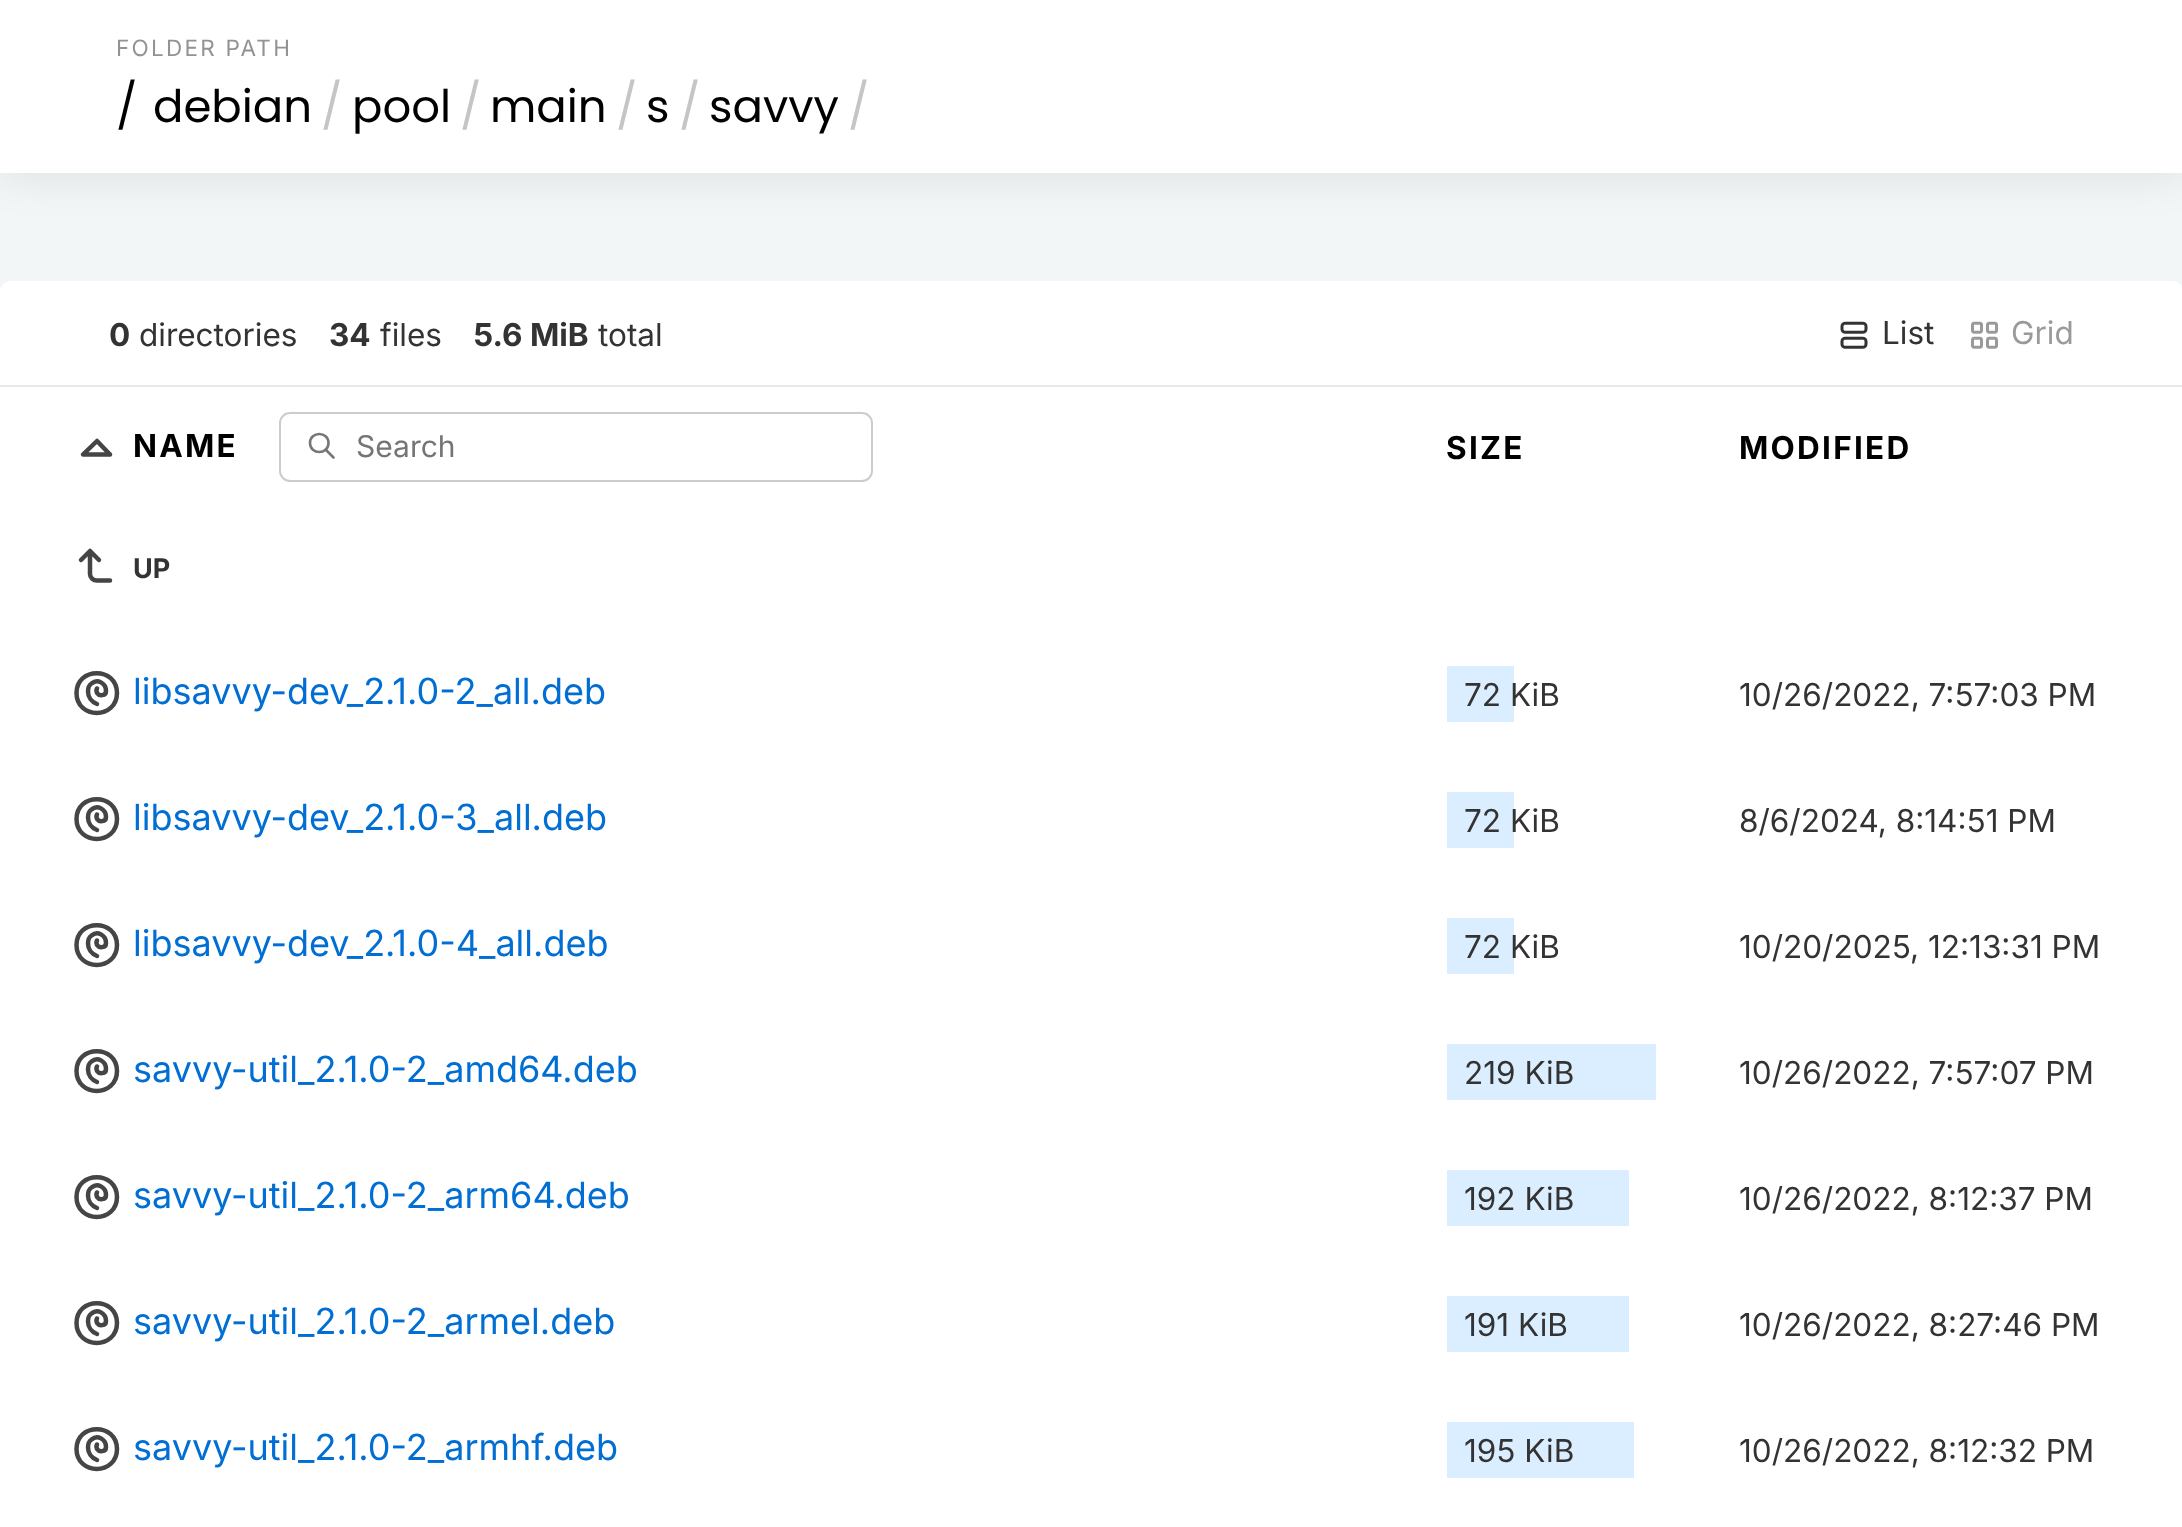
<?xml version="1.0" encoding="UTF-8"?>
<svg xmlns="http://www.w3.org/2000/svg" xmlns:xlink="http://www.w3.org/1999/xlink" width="2182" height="1527">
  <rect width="100%" height="100%" fill="#f3f6f7" />
  <rect width="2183" height="173" fill="#000000" fill-opacity="0.1" filter="blur(22.5px)" />
  <rect width="2182" height="173" fill="#ffffff" />
  <rect y="281" width="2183" height="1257" rx="11" fill="#ffffff" />
  <rect y="385" width="2182" height="2" fill="#e5e9ea" />
  <image x="1840" y="321" width="28" height="28" xlink:href="image1.png" />
  <image x="1971" y="321" width="27" height="28" xlink:href="image2.png" />
  <path d="M 110 454.5 l -13 -13.5 l -14 13.5 h 27" fill="none" stroke="#454545" stroke-width="4.5" stroke-linecap="round" stroke-linejoin="round" />
  <path d="M 310 443 c 0 12 18.5 12 18.5 0 c 0 -12 -18.5 -12 -18.5 0 m 23.5 14.5 l -8 -8" fill="none" stroke="#777777" stroke-width="2.6" stroke-linecap="round" stroke-linejoin="round" />
  <rect x="280" y="413" width="592" height="68" rx="10" fill="none" stroke="#cccccc" stroke-width="2" />
  <path d="M 110 580.5 h -13 c -4 0 -7 -3 -7 -6.5 v -23 l -9 9 m 18 0 l -9 -9" fill="none" stroke="#454545" stroke-width="4.5" stroke-linecap="round" stroke-linejoin="round" />
  <path d="M 97 704 c -5.5 -2 -9 -7 -9 -12.5 c 0 -5 2 -7 3.5 -8 c 6 -5 14.5 -0.5 14.5 7.5 c 0 5.5 -7 4.5 -8 3 c -1.5 -1.5 -2.5 -3 -1 -5.5 m -20.5 4.5 c 0 26.5 40.5 26.5 40.5 0 c 0 -26.5 -40.5 -26.5 -40.5 0" fill="none" stroke="#454545" stroke-width="4.5" stroke-linecap="round" stroke-linejoin="round" />
  <rect x="1447" y="666" width="67" height="56" fill="#dbeeff" />
  <path d="M 97 830 c -5.5 -2 -9 -7 -9 -12.5 c 0 -5 2 -7 3.5 -8 c 6 -5 14.5 -0.5 14.5 7.5 c 0 5.5 -7 4.5 -8 3 c -1.5 -1.5 -2.5 -3 -1 -5.5 m -20.5 4.5 c 0 26.5 40.5 26.5 40.5 0 c 0 -26.5 -40.5 -26.5 -40.5 0" fill="none" stroke="#454545" stroke-width="4.5" stroke-linecap="round" stroke-linejoin="round" />
  <rect x="1447" y="792" width="67" height="56" fill="#dbeeff" />
  <path d="M 97 956 c -5.5 -2 -9 -7 -9 -12.5 c 0 -5 2 -7 3.5 -8 c 6 -5 14.5 -0.5 14.5 7.5 c 0 5.5 -7 4.5 -8 3 c -1.5 -1.5 -2.5 -3 -1 -5.5 m -20.5 4.5 c 0 26.5 40.5 26.5 40.5 0 c 0 -26.5 -40.5 -26.5 -40.5 0" fill="none" stroke="#454545" stroke-width="4.5" stroke-linecap="round" stroke-linejoin="round" />
  <rect x="1447" y="918" width="67" height="56" fill="#dbeeff" />
  <path d="M 97 1082 c -5.5 -2 -9 -7 -9 -12.5 c 0 -5 2 -7 3.5 -8 c 6 -5 14.5 -0.5 14.5 7.5 c 0 5.5 -7 4.5 -8 3 c -1.5 -1.5 -2.5 -3 -1 -5.5 m -20.5 4.5 c 0 26.5 40.5 26.5 40.5 0 c 0 -26.5 -40.5 -26.5 -40.5 0" fill="none" stroke="#454545" stroke-width="4.5" stroke-linecap="round" stroke-linejoin="round" />
  <rect x="1447" y="1044" width="209" height="56" fill="#dbeeff" />
  <path d="M 97 1208 c -5.5 -2 -9 -7 -9 -12.5 c 0 -5 2 -7 3.5 -8 c 6 -5 14.5 -0.5 14.5 7.5 c 0 5.5 -7 4.5 -8 3 c -1.5 -1.5 -2.5 -3 -1 -5.5 m -20.5 4.5 c 0 26.5 40.5 26.5 40.5 0 c 0 -26.5 -40.5 -26.5 -40.5 0" fill="none" stroke="#454545" stroke-width="4.5" stroke-linecap="round" stroke-linejoin="round" />
  <rect x="1447" y="1170" width="182" height="56" fill="#dbeeff" />
  <path d="M 97 1334 c -5.5 -2 -9 -7 -9 -12.5 c 0 -5 2 -7 3.5 -8 c 6 -5 14.5 -0.5 14.5 7.5 c 0 5.5 -7 4.5 -8 3 c -1.5 -1.5 -2.5 -3 -1 -5.5 m -20.5 4.5 c 0 26.5 40.5 26.5 40.5 0 c 0 -26.5 -40.5 -26.5 -40.5 0" fill="none" stroke="#454545" stroke-width="4.5" stroke-linecap="round" stroke-linejoin="round" />
  <rect x="1447" y="1296" width="182" height="56" fill="#dbeeff" />
  <path d="M 97 1460 c -5.5 -2 -9 -7 -9 -12.5 c 0 -5 2 -7 3.5 -8 c 6 -5 14.5 -0.5 14.5 7.5 c 0 5.5 -7 4.5 -8 3 c -1.5 -1.5 -2.5 -3 -1 -5.5 m -20.5 4.5 c 0 26.5 40.5 26.5 40.5 0 c 0 -26.5 -40.5 -26.5 -40.5 0" fill="none" stroke="#454545" stroke-width="4.5" stroke-linecap="round" stroke-linejoin="round" />
  <rect x="1447" y="1422" width="187" height="56" fill="#dbeeff" />
  <text x="116" y="56" style="font-family: Inter; font-size: 22.5px; letter-spacing: 2.25px; fill: #939393">FOLDER PATH</text>
  <text x="116" y="122" style="font-family: Poppins; font-size: 45px; fill: #000000">/</text>
  <text x="153" y="122" style="font-family: Poppins; font-size: 45px; fill: #000000">debian</text>
  <text x="321" y="122" style="font-family: Poppins; font-size: 45px; fill: #c5c5c5">/</text>
  <text x="352" y="122" style="font-family: Poppins; font-size: 45px; fill: #000000">pool</text>
  <text x="460" y="122" style="font-family: Poppins; font-size: 45px; fill: #c5c5c5">/</text>
  <text x="490" y="122" style="font-family: Poppins; font-size: 45px; fill: #000000">main</text>
  <text x="616" y="122" style="font-family: Poppins; font-size: 45px; fill: #c5c5c5">/</text>
  <text x="646" y="122" style="font-family: Poppins; font-size: 45px; fill: #000000">s</text>
  <text x="679" y="122" style="font-family: Poppins; font-size: 45px; fill: #c5c5c5">/</text>
  <text x="709" y="122" style="font-family: Poppins; font-size: 45px; fill: #000000">savvy</text>
  <text x="848" y="122" style="font-family: Poppins; font-size: 45px; fill: #c5c5c5">/</text>
  <text x="109" y="346" style="font-family: Inter; font-size: 31.5px; font-weight: bold; fill: #333333">0</text>
  <text x="139" y="346" style="font-family: Inter; font-size: 31.5px; fill: #333333">directories</text>
  <text x="329" y="346" style="font-family: Inter; font-size: 31.5px; font-weight: bold; fill: #333333">34</text>
  <text x="380" y="346" style="font-family: Inter; font-size: 31.5px; fill: #333333">files</text>
  <text x="473" y="346" style="font-family: Inter; font-size: 31.5px; font-weight: bold; fill: #333333">5.6 MiB</text>
  <text x="598" y="346" style="font-family: Inter; font-size: 31.5px; fill: #333333">total</text>
  <text x="1882" y="344" style="font-family: Inter; font-size: 31.5px; fill: #333333">List</text>
  <text x="2011" y="344" style="font-family: Inter; font-size: 31.5px; fill: #9a9a9a">Grid</text>
  <text x="133" y="457" style="font-family: Inter; font-size: 31.5px; font-weight: bold; letter-spacing: 2.25px; fill: #000000">NAME</text>
  <text x="356" y="457" style="font-family: Inter; font-size: 30px; fill: #757575">Search</text>
  <text x="1446" y="459" style="font-family: Inter; font-size: 31.5px; font-weight: bold; letter-spacing: 2.25px; fill: #000000">SIZE</text>
  <text x="1739" y="459" style="font-family: Inter; font-size: 31.5px; font-weight: bold; letter-spacing: 2.25px; fill: #000000">MODIFIED</text>
  <text x="133" y="578" style="font-family: Inter; font-size: 27px; font-weight: bold; fill: #333333">UP</text>
  <text x="133" y="704" style="font-family: Inter; font-size: 36px; fill: #006ed3">libsavvy-dev_2.1.0-2_all.deb</text>
  <text x="1464" y="706" style="font-family: Inter; font-size: 31.5px; fill: #333333">72 KiB</text>
  <text x="1739" y="706" style="font-family: Inter; font-size: 31.5px; fill: #333333">10/26/2022, 7:57:03 PM</text>
  <text x="133" y="830" style="font-family: Inter; font-size: 36px; fill: #006ed3">libsavvy-dev_2.1.0-3_all.deb</text>
  <text x="1464" y="832" style="font-family: Inter; font-size: 31.5px; fill: #333333">72 KiB</text>
  <text x="1739" y="832" style="font-family: Inter; font-size: 31.5px; fill: #333333">8/6/2024, 8:14:51 PM</text>
  <text x="133" y="956" style="font-family: Inter; font-size: 36px; fill: #006ed3">libsavvy-dev_2.1.0-4_all.deb</text>
  <text x="1464" y="958" style="font-family: Inter; font-size: 31.5px; fill: #333333">72 KiB</text>
  <text x="1739" y="958" style="font-family: Inter; font-size: 31.5px; fill: #333333">10/20/2025, 12:13:31 PM</text>
  <text x="133" y="1082" style="font-family: Inter; font-size: 36px; fill: #006ed3">savvy-util_2.1.0-2_amd64.deb</text>
  <text x="1464" y="1084" style="font-family: Inter; font-size: 31.5px; fill: #333333">219 KiB</text>
  <text x="1739" y="1084" style="font-family: Inter; font-size: 31.5px; fill: #333333">10/26/2022, 7:57:07 PM</text>
  <text x="133" y="1208" style="font-family: Inter; font-size: 36px; fill: #006ed3">savvy-util_2.1.0-2_arm64.deb</text>
  <text x="1464" y="1210" style="font-family: Inter; font-size: 31.5px; fill: #333333">192 KiB</text>
  <text x="1739" y="1210" style="font-family: Inter; font-size: 31.5px; fill: #333333">10/26/2022, 8:12:37 PM</text>
  <text x="133" y="1334" style="font-family: Inter; font-size: 36px; fill: #006ed3">savvy-util_2.1.0-2_armel.deb</text>
  <text x="1464" y="1336" style="font-family: Inter; font-size: 31.5px; fill: #333333">191 KiB</text>
  <text x="1739" y="1336" style="font-family: Inter; font-size: 31.5px; fill: #333333">10/26/2022, 8:27:46 PM</text>
  <text x="133" y="1460" style="font-family: Inter; font-size: 36px; fill: #006ed3">savvy-util_2.1.0-2_armhf.deb</text>
  <text x="1464" y="1462" style="font-family: Inter; font-size: 31.5px; fill: #333333">195 KiB</text>
  <text x="1739" y="1462" style="font-family: Inter; font-size: 31.5px; fill: #333333">10/26/2022, 8:12:32 PM</text>
</svg>
